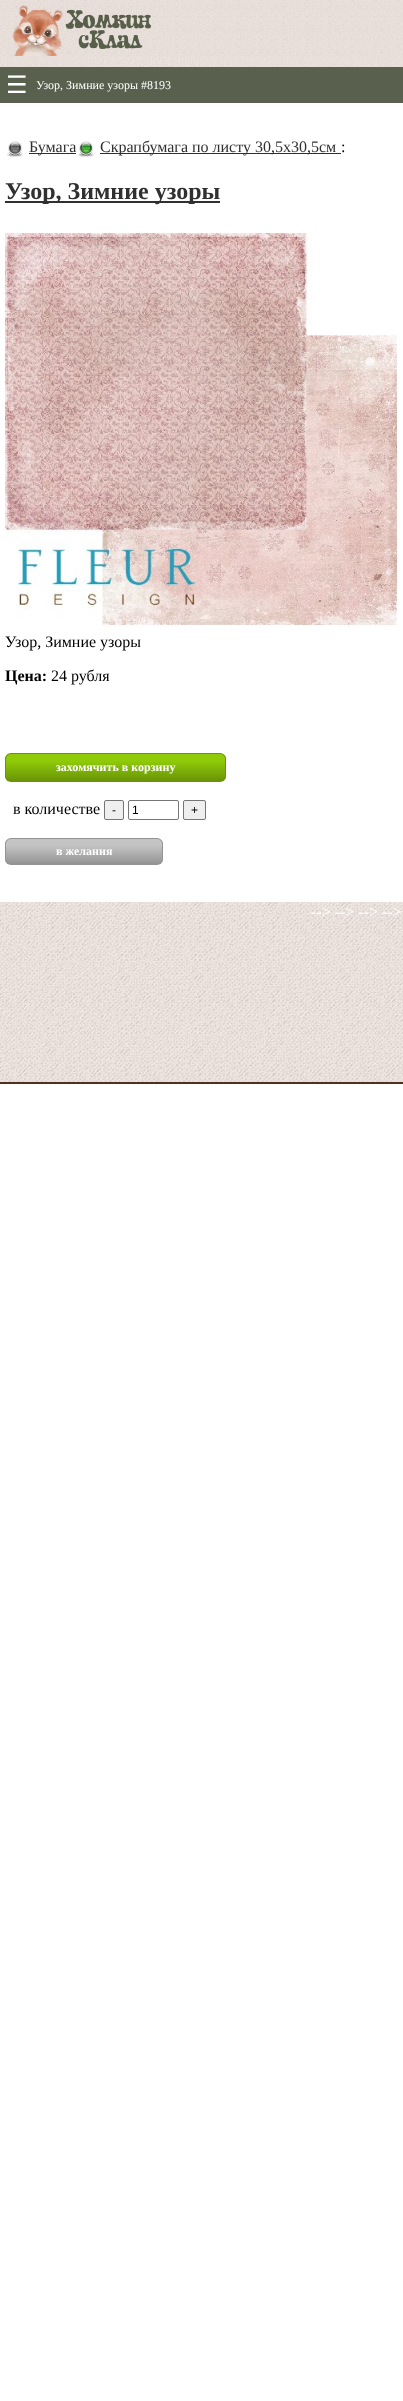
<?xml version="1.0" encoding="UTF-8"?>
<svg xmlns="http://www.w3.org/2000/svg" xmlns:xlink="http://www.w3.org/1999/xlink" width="403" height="2401">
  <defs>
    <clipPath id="clip1"><rect x="5" y="753" width="221" height="29" rx="6" /></clipPath>
    <linearGradient id="g1" gradientUnits="userSpaceOnUse" x1="116" y1="754" x2="116" y2="781"><stop offset="0.25" stop-color="#90cb09" /><stop offset="1" stop-color="#699407" /></linearGradient>
    <clipPath id="clip2"><rect x="5" y="838" width="158" height="27" rx="6" /></clipPath>
    <linearGradient id="g2" gradientUnits="userSpaceOnUse" x1="84" y1="839" x2="84" y2="864"><stop offset="0.25" stop-color="#c4c4c4" /><stop offset="1" stop-color="#939393" /></linearGradient>
  </defs>
  <rect width="100%" height="100%" fill="#ffffff" />
  <image x="0" y="0" width="403" height="67" xlink:href="image1.png" />
  <rect y="67" width="403" height="36" fill="#59604e" />
  <image x="7" y="141" width="16" height="16" xlink:href="image2.png" />
  <rect x="29" y="153" width="47" height="1" fill="#303030" />
  <image x="78" y="141" width="16" height="16" xlink:href="image3.png" />
  <rect x="100" y="153" width="241" height="1" fill="#303030" />
  <rect x="5" y="201" width="215" height="2" fill="#303030" />
  <image x="5" y="233" width="392" height="392" xlink:href="image4.png" />
  <g clip-path="url(#clip1)">
    <rect x="5" y="754" width="221" height="27" fill="url(#g1)" />
  </g>
  <rect x="5.5" y="753.5" width="220" height="28" rx="5.5" fill="none" stroke="#699407" />
  <rect x="104.5" y="800.5" width="19" height="19" rx="1.5" fill="#efefef" stroke="#767676" />
  <rect x="128.5" y="800.5" width="50" height="19" rx="1.5" fill="none" stroke="#767676" />
  <rect x="183.5" y="800.5" width="22" height="19" rx="1.5" fill="#efefef" stroke="#767676" />
  <g clip-path="url(#clip2)">
    <rect x="5" y="839" width="158" height="25" fill="url(#g2)" />
  </g>
  <rect x="5.5" y="838.5" width="157" height="26" rx="5.5" fill="none" stroke="#939393" />
  <rect y="1082" width="403" height="2" fill="#503121" />
  <image x="0" y="902" width="403" height="180" xlink:href="image5.png" />
  <text x="6" y="93" style="font-family: DejaVu Sans; font-size: 24px; fill: #ffffff">☰</text>
  <text x="36" y="89" style="font-family: Liberation Serif; font-size: 12px; fill: #ffffff">Узор, Зимние узоры #8193</text>
  <text x="29" y="152" style="font-family: Liberation Serif; font-size: 16px; fill: #303030">Бумага</text>
  <text x="100" y="152" style="font-family: Liberation Serif; font-size: 16px; fill: #303030">Скрапбумага по листу 30,5х30,5см</text>
  <text x="341" y="152" style="font-family: Liberation Serif; font-size: 16px; fill: #000000">:</text>
  <text x="5" y="199" style="font-family: Liberation Serif; font-size: 24px; font-weight: bold; fill: #303030">Узор, Зимние узоры</text>
  <text x="5" y="647" style="font-family: Liberation Serif; font-size: 16px; fill: #000000">Узор, Зимние узоры</text>
  <text x="5" y="681" style="font-family: Liberation Serif; font-size: 16px; font-weight: bold; fill: #000000">Цена:</text>
  <text x="51" y="681" style="font-family: Liberation Serif; font-size: 16px; fill: #000000">24 рубля</text>
  <text x="56" y="771" style="font-family: Liberation Serif; font-size: 12px; font-weight: bold; fill: #ffffff">захомячить в корзину</text>
  <text x="13" y="814" style="font-family: Liberation Serif; font-size: 16px; fill: #000000">в количестве</text>
  <text x="112" y="814" style="font-family: Liberation Sans; font-size: 12px; fill: #000000">-</text>
  <text x="132" y="814" style="font-family: Liberation Sans; font-size: 12px; fill: #000000">1</text>
  <text x="191" y="814" style="font-family: Liberation Sans; font-size: 12px; fill: #000000">+</text>
  <text x="56" y="855" style="font-family: Liberation Serif; font-size: 12px; font-weight: bold; fill: #ffffff">в желания</text>
  <text x="311" y="917" style="font-family: Liberation Serif; font-size: 16px; fill: #ffffff">--&gt; --&gt; --&gt; --&gt;</text>
</svg>
